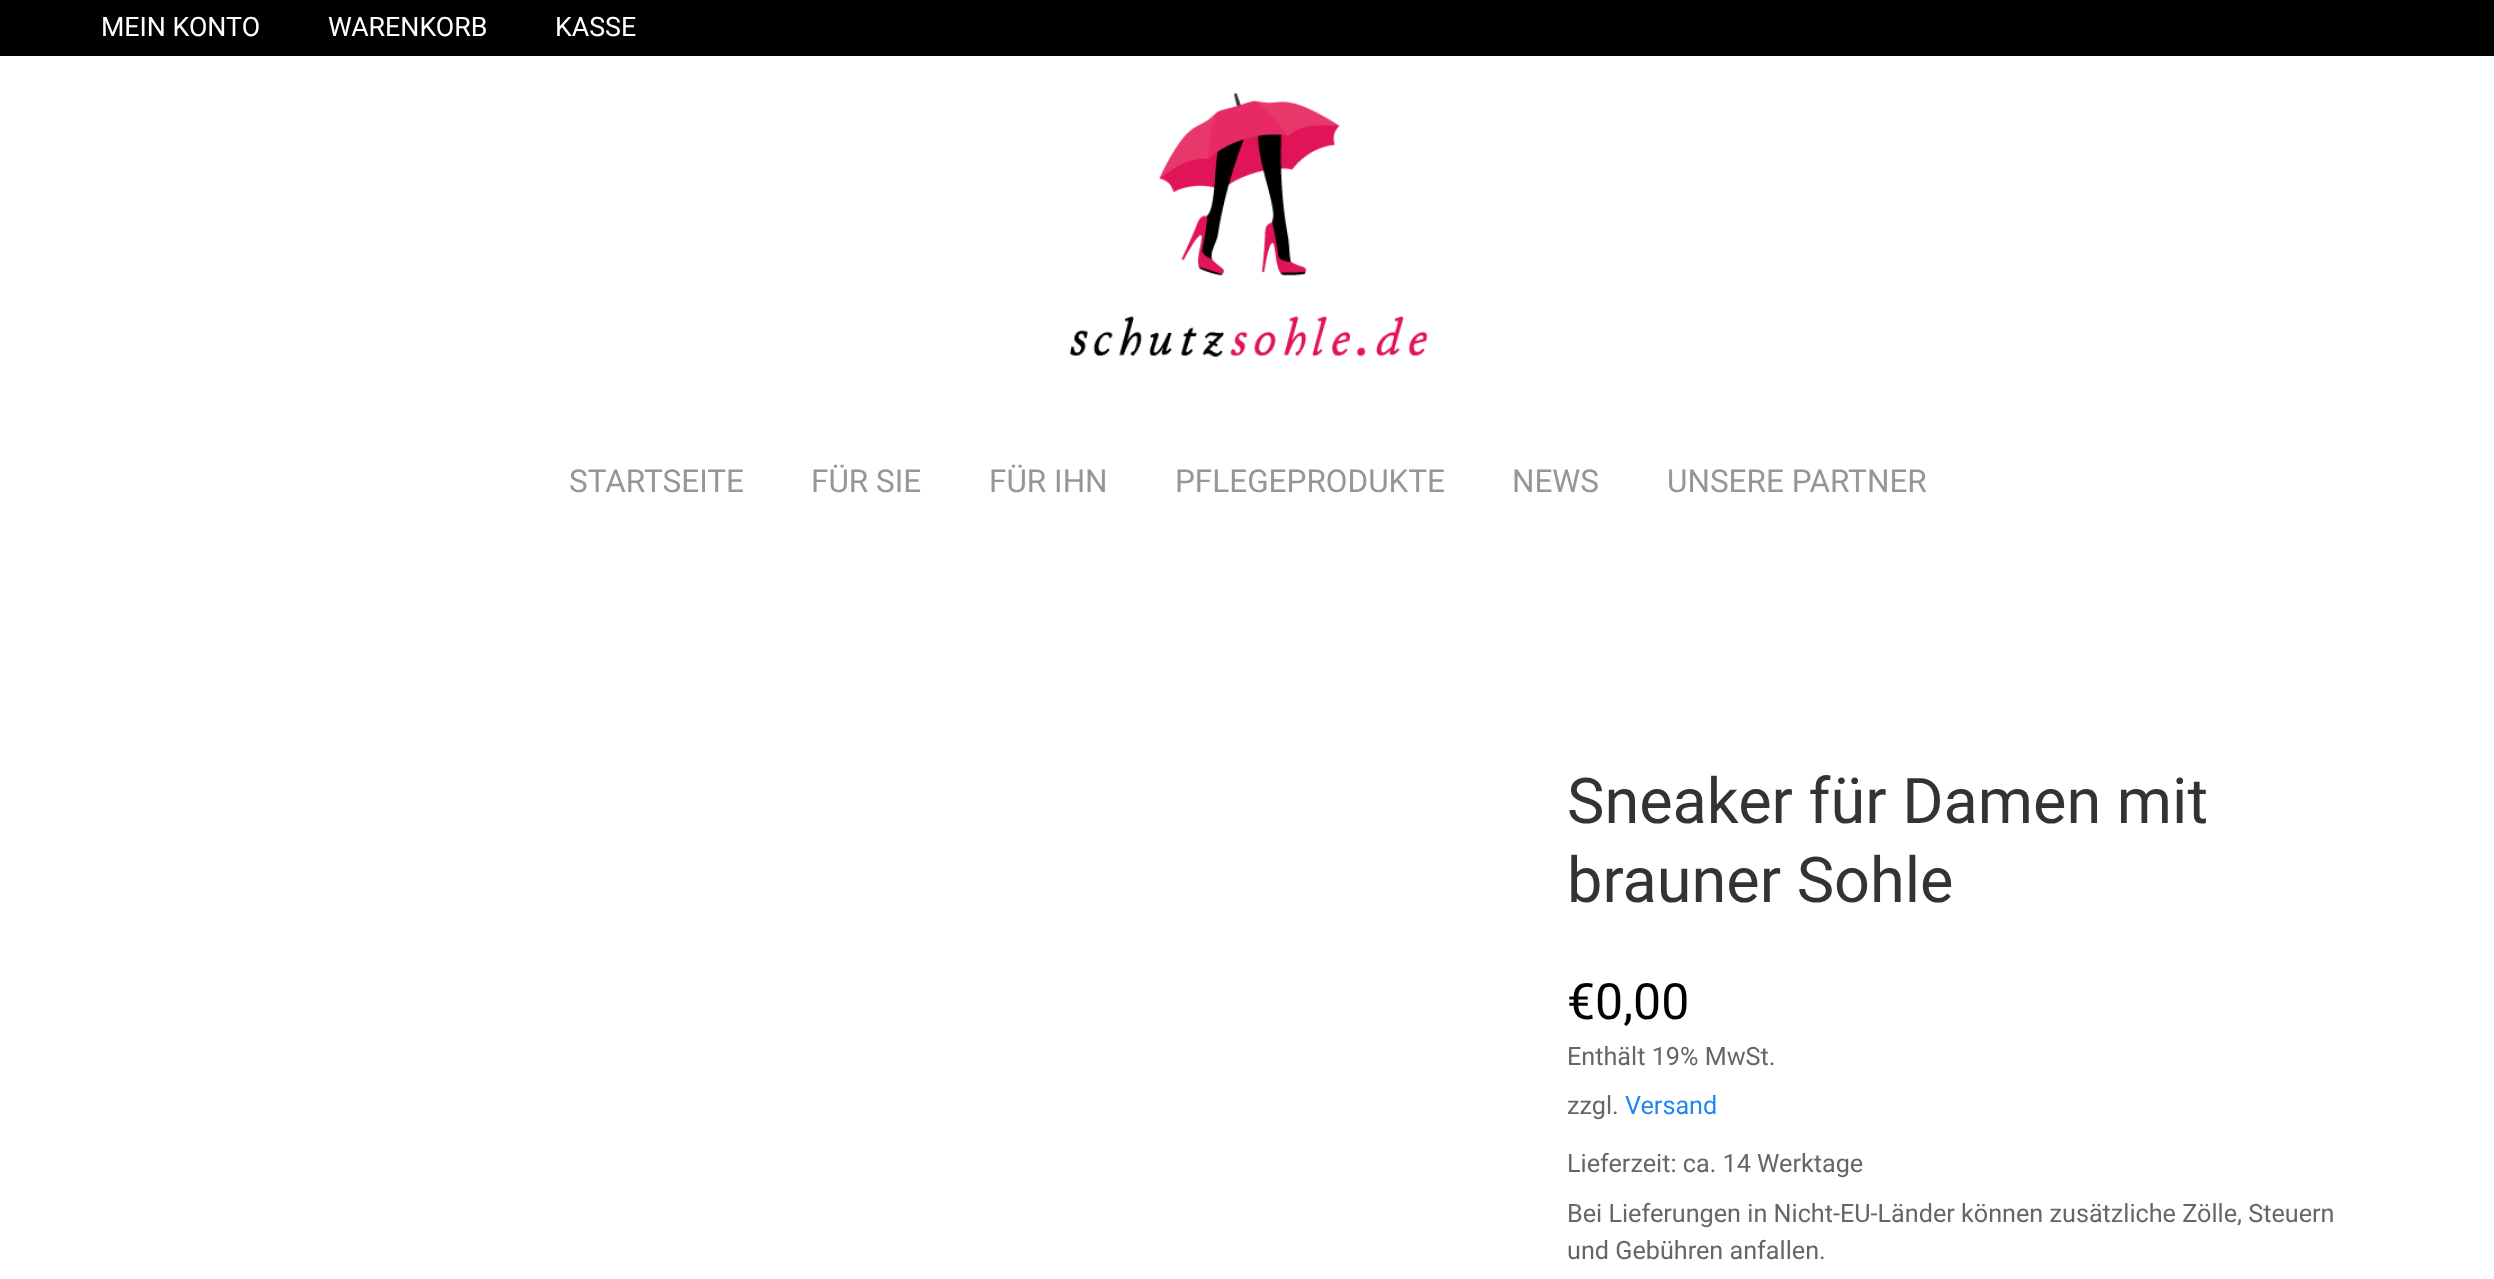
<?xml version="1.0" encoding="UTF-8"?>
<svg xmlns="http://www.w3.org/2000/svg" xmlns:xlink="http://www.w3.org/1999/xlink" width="2494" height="1279">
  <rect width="100%" height="100%" fill="#ffffff" />
  <rect width="2494" height="56" fill="#000000" />
  <image x="1069" y="93" width="359" height="264" xlink:href="image1.png" />
  <text x="101" y="36" style="font-family: Roboto; font-size: 26.75px; fill: #ffffff">MEIN KONTO</text>
  <text x="328" y="36" style="font-family: Roboto; font-size: 26.75px; fill: #ffffff">WARENKORB</text>
  <text x="555" y="36" style="font-family: Roboto; font-size: 26.75px; fill: #ffffff">KASSE</text>
  <text x="569" y="492" style="font-family: Roboto; font-size: 31.5px; fill: #969696">STARTSEITE</text>
  <text x="811" y="492" style="font-family: Roboto; font-size: 31.5px; fill: #969696">FÜR SIE</text>
  <text x="989" y="492" style="font-family: Roboto; font-size: 31.5px; fill: #969696">FÜR IHN</text>
  <text x="1175" y="492" style="font-family: Roboto; font-size: 31.5px; fill: #969696">PFLEGEPRODUKTE</text>
  <text x="1512" y="492" style="font-family: Roboto; font-size: 31.5px; fill: #969696">NEWS</text>
  <text x="1667" y="492" style="font-family: Roboto; font-size: 31.5px; fill: #969696">UNSERE PARTNER</text>
  <text x="1567" y="823" style="font-family: Roboto; font-size: 63px; fill: #333333">Sneaker für Damen mit</text>
  <text x="1567" y="902" style="font-family: Roboto; font-size: 63px; fill: #333333">brauner Sohle</text>
  <text x="1567" y="1019" style="font-family: Roboto; font-size: 50px; fill: #000000">€0,00</text>
  <text x="1567" y="1065" style="font-family: Roboto; font-size: 25.2px; fill: #666666">Enthält 19% MwSt.</text>
  <text x="1567" y="1114" style="font-family: Roboto; font-size: 25.2px; fill: #666666">zzgl.</text>
  <text x="1625" y="1114" style="font-family: Roboto; font-size: 25.2px; fill: #1e87f0">Versand</text>
  <text x="1567" y="1172" style="font-family: Roboto; font-size: 25.2px; fill: #666666">Lieferzeit: ca. 14 Werktage</text>
  <text x="1567" y="1222" style="font-family: Roboto; font-size: 25.2px; fill: #666666">Bei Lieferungen in Nicht-EU-Länder können zusätzliche Zölle, Steuern</text>
  <text x="1567" y="1259" style="font-family: Roboto; font-size: 25.2px; fill: #666666">und Gebühren anfallen.</text>
</svg>
